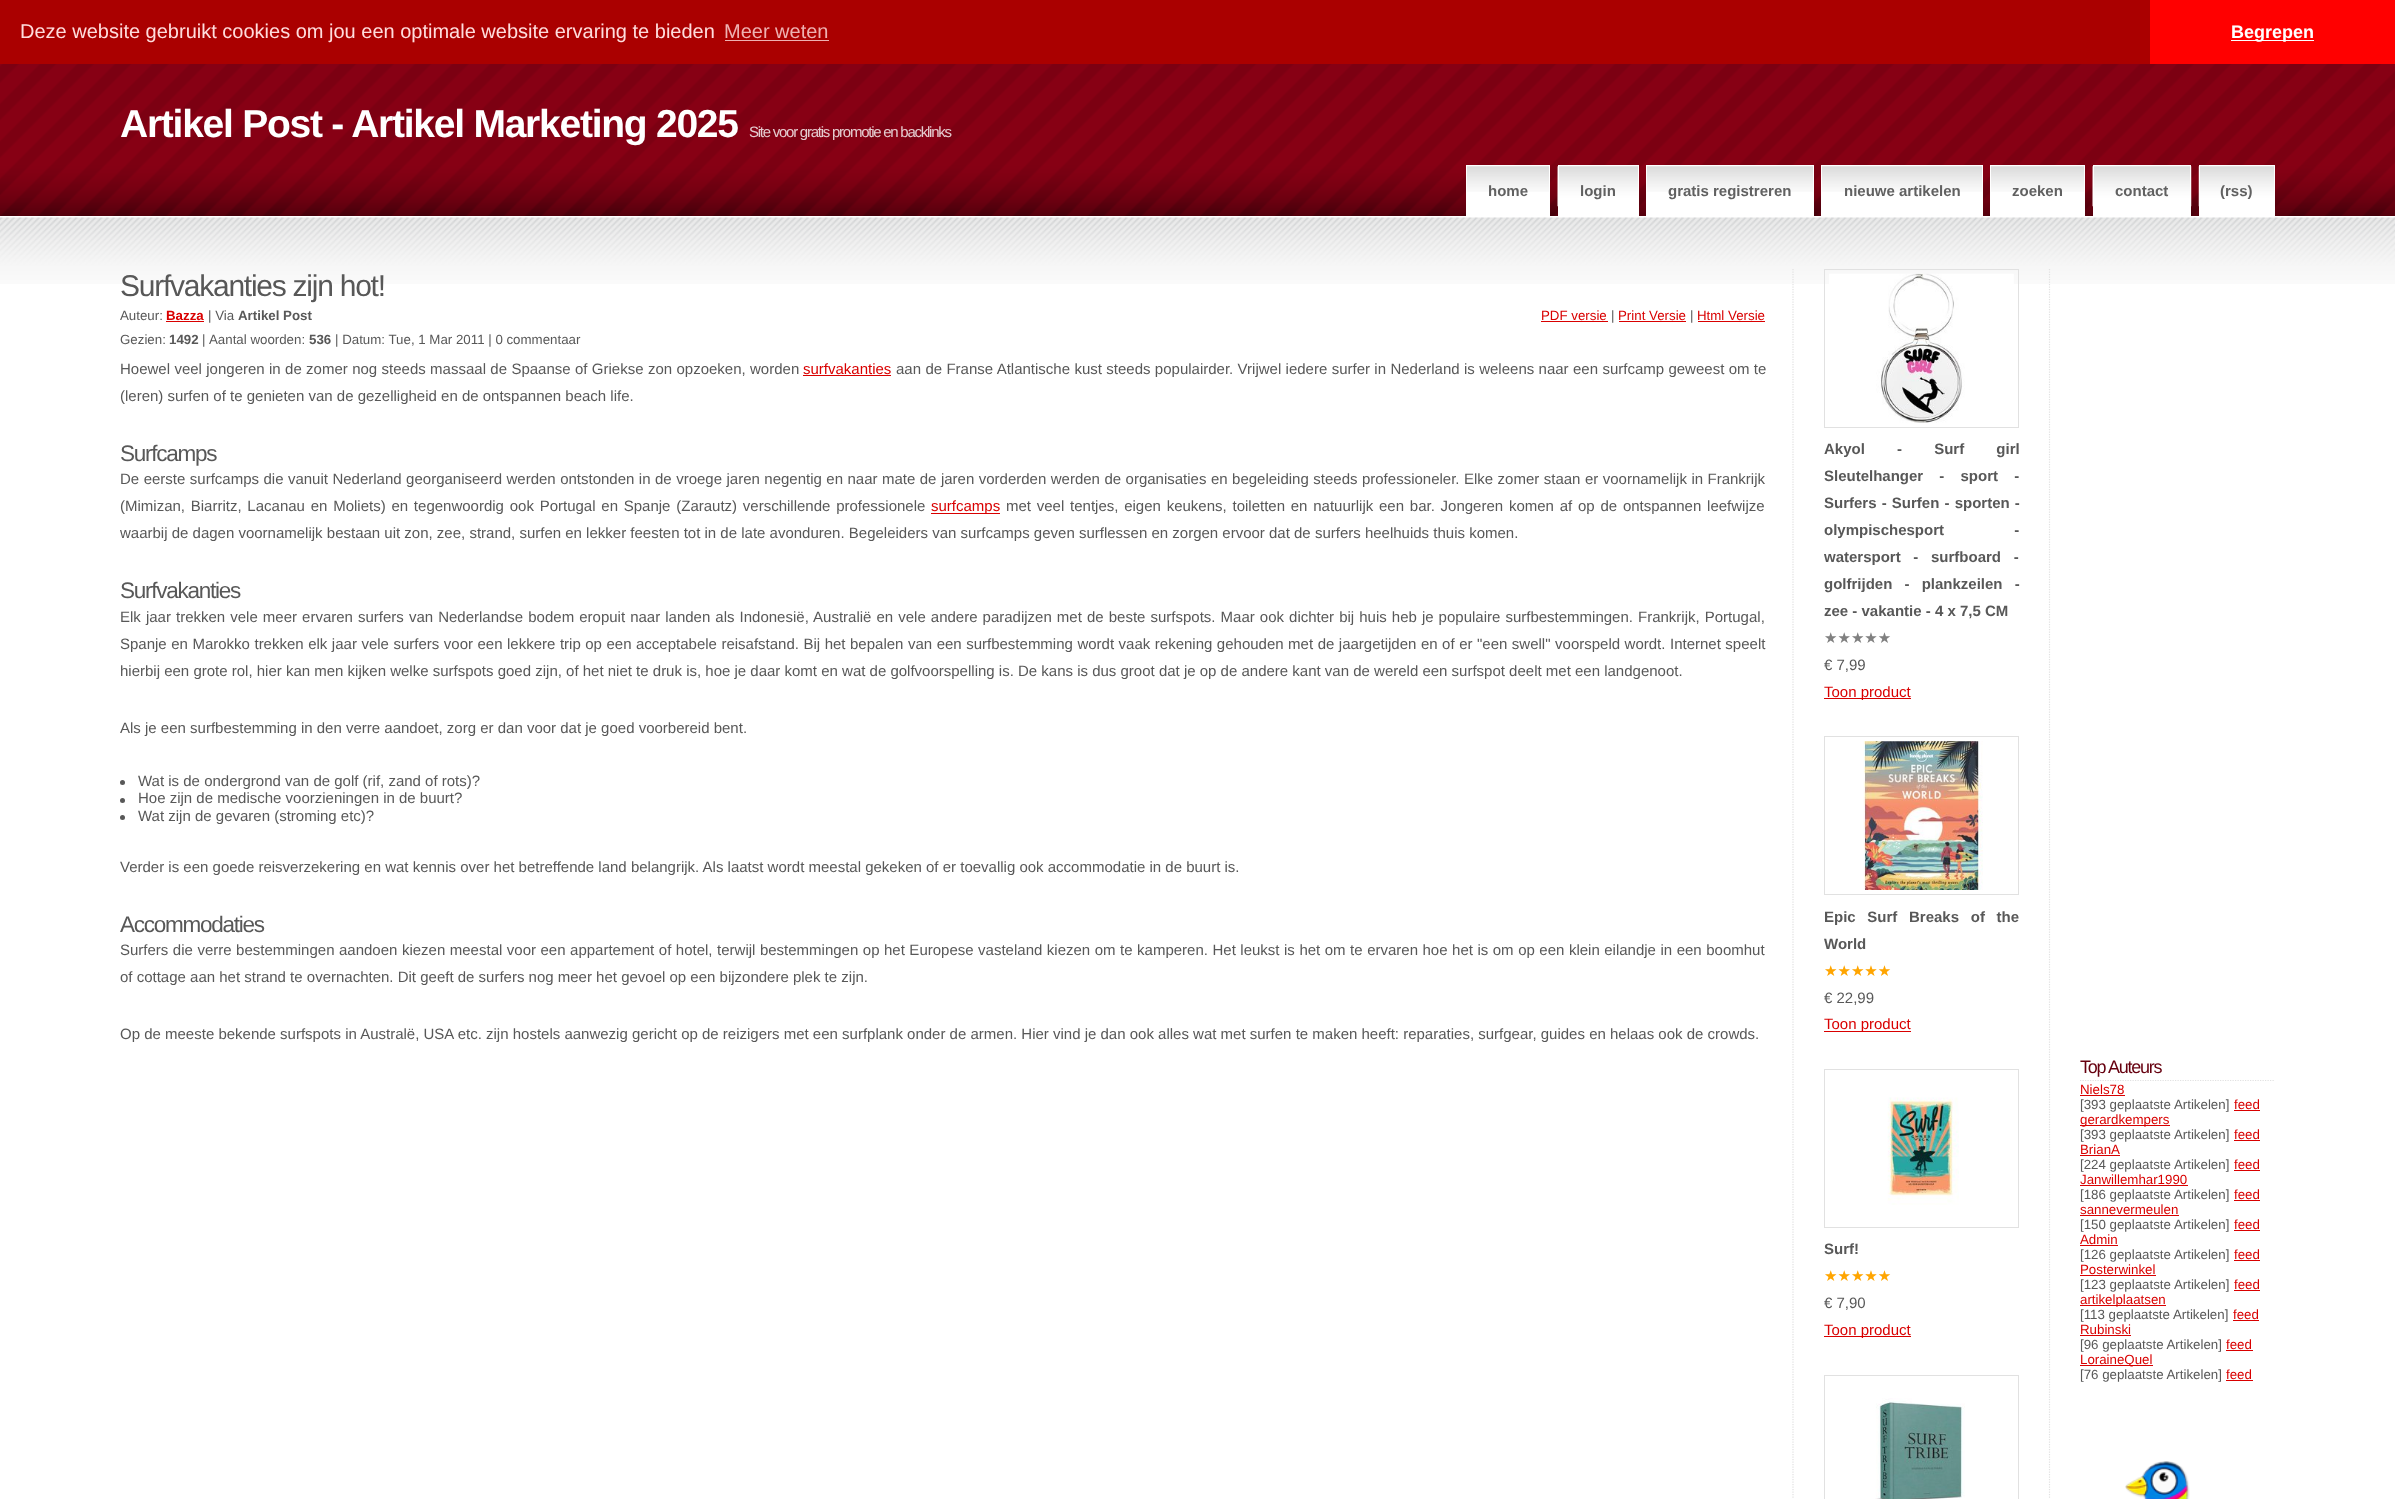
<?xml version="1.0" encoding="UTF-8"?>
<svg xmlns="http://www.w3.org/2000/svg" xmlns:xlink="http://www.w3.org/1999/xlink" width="2395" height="1499">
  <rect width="100%" height="100%" fill="#ffffff" />
  <rect width="2150" height="64" fill="#aa0000" />
  <rect x="725" y="40" width="104" height="1" fill="#eeb1b1" />
  <rect x="2150" width="245" height="64" fill="#ff0000" />
  <rect x="2231" y="40" width="83" height="1" fill="#ffffff" />
  <image x="0" y="64" width="2395" height="152" xlink:href="image1.png" />
  <rect x="1467" y="166" width="82" height="49" fill="#ffffff" />
  <image x="1467" y="166" width="82" height="26" xlink:href="image2.png" />
  <rect x="1466.5" y="165.5" width="83" height="50" fill="none" stroke="#ffffff" />
  <rect x="1559" y="166" width="79" height="49" fill="#ffffff" />
  <image x="1557" y="166" width="81" height="41" xlink:href="image3.png" />
  <rect x="1558.5" y="165.5" width="80" height="50" fill="none" stroke="#ffffff" />
  <rect x="1647" y="166" width="166" height="49" fill="#ffffff" />
  <image x="1647" y="166" width="166" height="26" xlink:href="image4.png" />
  <rect x="1646.5" y="165.5" width="167" height="50" fill="none" stroke="#ffffff" />
  <rect x="1822" y="166" width="160" height="49" fill="#ffffff" />
  <image x="1822" y="166" width="160" height="26" xlink:href="image5.png" />
  <rect x="1821.5" y="165.5" width="161" height="50" fill="none" stroke="#ffffff" />
  <rect x="1991" y="166" width="93" height="49" fill="#ffffff" />
  <image x="1991" y="166" width="93" height="26" xlink:href="image6.png" />
  <rect x="1990.5" y="165.5" width="94" height="50" fill="none" stroke="#ffffff" />
  <rect x="2094" y="166" width="96" height="49" fill="#ffffff" />
  <image x="2092" y="166" width="100" height="41" xlink:href="image7.png" />
  <rect x="2093.5" y="165.5" width="97" height="50" fill="none" stroke="#ffffff" />
  <rect x="2200" y="166" width="74" height="49" fill="#ffffff" />
  <image x="2198" y="166" width="76" height="41" xlink:href="image8.png" />
  <rect x="2199.5" y="165.5" width="75" height="50" fill="none" stroke="#ffffff" />
  <image x="0" y="217" width="2395" height="67" xlink:href="image9.png" />
  <rect x="166" y="321" width="38" height="1" fill="#d90000" />
  <rect x="1541" y="321" width="67" height="1" fill="#d90000" />
  <rect x="1619" y="321" width="67" height="1" fill="#d90000" />
  <rect x="1698" y="321" width="67" height="1" fill="#d90000" />
  <rect x="803" y="375" width="88" height="1" fill="#d90000" />
  <rect x="931" y="513" width="69" height="1" fill="#d90000" />
  <circle cx="122.5" cy="782.5" r="2.5" fill="#585858" />
  <circle cx="122.5" cy="800.5" r="2.5" fill="#585858" />
  <circle cx="122.5" cy="817.5" r="2.5" fill="#585858" />
  <path d="M 1793 269 v 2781" fill="none" stroke="#e1e1e1" stroke-width="1.2" stroke-dasharray="1.25 1.25" />
  <rect x="1824.5" y="269.5" width="194" height="158" fill="none" stroke="#e1e1e1" />
  <image x="1829" y="273" width="185" height="150" xlink:href="image10.png" />
  <rect x="1824" y="698" width="87" height="1" fill="#d90000" />
  <rect x="1824.5" y="736.5" width="194" height="158" fill="none" stroke="#e1e1e1" />
  <image x="1863" y="741" width="120" height="149" xlink:href="image11.png" />
  <rect x="1824" y="1031" width="87" height="1" fill="#d90000" />
  <rect x="1824.5" y="1069.5" width="194" height="158" fill="none" stroke="#e1e1e1" />
  <image x="1887" y="1097" width="72" height="108" xlink:href="image12.png" />
  <rect x="1824" y="1336" width="87" height="1" fill="#d90000" />
  <rect x="1824.5" y="1375.5" width="194" height="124" fill="none" stroke="#e1e1e1" />
  <image x="1875" y="1398" width="90" height="101" xlink:href="image13.png" />
  <path d="M 2049.5 269 v 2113.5" fill="none" stroke="#e1e1e1" stroke-width="1.2" stroke-dasharray="1.25 1.25" />
  <path d="M 2080 1080.5 h 195" fill="none" stroke="#e1e1e1" stroke-width="1.2" stroke-dasharray="1.25 1.25" />
  <rect x="2080" y="1095" width="45" height="1" fill="#d90000" />
  <rect x="2234" y="1110" width="26" height="1" fill="#d90000" />
  <rect x="2080" y="1125" width="90" height="1" fill="#d90000" />
  <rect x="2234" y="1140" width="26" height="1" fill="#d90000" />
  <rect x="2080" y="1155" width="40" height="1" fill="#d90000" />
  <rect x="2234" y="1170" width="26" height="1" fill="#d90000" />
  <rect x="2080" y="1185" width="108" height="1" fill="#d90000" />
  <rect x="2234" y="1200" width="26" height="1" fill="#d90000" />
  <rect x="2080" y="1215" width="99" height="1" fill="#d90000" />
  <rect x="2234" y="1230" width="26" height="1" fill="#d90000" />
  <rect x="2080" y="1245" width="38" height="1" fill="#d90000" />
  <rect x="2234" y="1260" width="26" height="1" fill="#d90000" />
  <rect x="2080" y="1275" width="76" height="1" fill="#d90000" />
  <rect x="2234" y="1290" width="26" height="1" fill="#d90000" />
  <rect x="2080" y="1305" width="86" height="1" fill="#d90000" />
  <rect x="2233" y="1320" width="26" height="1" fill="#d90000" />
  <rect x="2080" y="1335" width="51" height="1" fill="#d90000" />
  <rect x="2226" y="1350" width="27" height="1" fill="#d90000" />
  <rect x="2080" y="1365" width="73" height="1" fill="#d90000" />
  <rect x="2226" y="1380" width="27" height="1" fill="#d90000" />
  <image x="2125" y="1461" width="65" height="38" xlink:href="image14.png" />
  <text x="20" y="38" style="font-family: Liberation Sans; font-size: 20px; fill: #ffdddd">Deze website gebruikt cookies om jou een optimale website ervaring te bieden</text>
  <text x="724" y="38" style="font-family: Liberation Sans; font-size: 20px; fill: #eeb1b1">Meer weten</text>
  <text x="2231" y="38" style="font-family: Liberation Sans; font-size: 18px; font-weight: bold; fill: #ffffff">Begrepen</text>
  <text x="120" y="137" style="font-family: Liberation Sans; font-size: 39px; font-weight: bold; letter-spacing: -1.25px; fill: #ffffff">Artikel Post - Artikel Marketing 2025</text>
  <text x="749" y="137" style="font-family: Liberation Sans; font-size: 15px; letter-spacing: -1.25px; fill: #e5ccd0">Site voor gratis promotie en backlinks</text>
  <text x="1488" y="196" style="font-family: Liberation Sans; font-size: 15px; font-weight: bold; fill: #616161">home</text>
  <text x="1580" y="196" style="font-family: Liberation Sans; font-size: 15px; font-weight: bold; fill: #616161">login</text>
  <text x="1668" y="196" style="font-family: Liberation Sans; font-size: 15px; font-weight: bold; fill: #616161">gratis registreren</text>
  <text x="1844" y="196" style="font-family: Liberation Sans; font-size: 15px; font-weight: bold; fill: #616161">nieuwe artikelen</text>
  <text x="2012" y="196" style="font-family: Liberation Sans; font-size: 15px; font-weight: bold; fill: #616161">zoeken</text>
  <text x="2115" y="196" style="font-family: Liberation Sans; font-size: 15px; font-weight: bold; fill: #616161">contact</text>
  <text x="2220" y="196" style="font-family: Liberation Sans; font-size: 15px; font-weight: bold; fill: #616161">(rss)</text>
  <text x="120" y="296" style="font-family: Liberation Sans; font-size: 30px; letter-spacing: -1.25px; fill: #585858">Surfvakanties zijn hot!</text>
  <text x="120" y="320" style="font-family: Liberation Sans; font-size: 13.3px; fill: #585858">Auteur:</text>
  <text x="166" y="320" style="font-family: Liberation Sans; font-size: 13.3px; font-weight: bold; fill: #d90000">Bazza</text>
  <text x="208" y="320" style="font-family: Liberation Sans; font-size: 13.3px; fill: #585858">| Via</text>
  <text x="238" y="320" style="font-family: Liberation Sans; font-size: 13.3px; font-weight: bold; fill: #585858">Artikel Post</text>
  <text x="1541" y="320" style="font-family: Liberation Sans; font-size: 13.3px; fill: #d90000">PDF versie</text>
  <text x="1611" y="320" style="font-family: Liberation Sans; font-size: 13.3px; fill: #585858">|</text>
  <text x="1618" y="320" style="font-family: Liberation Sans; font-size: 13.3px; fill: #d90000">Print Versie</text>
  <text x="1690" y="320" style="font-family: Liberation Sans; font-size: 13.3px; fill: #585858">|</text>
  <text x="1697" y="320" style="font-family: Liberation Sans; font-size: 13.3px; fill: #d90000">Html Versie</text>
  <text x="120" y="344" style="font-family: Liberation Sans; font-size: 13.3px; fill: #585858">Gezien:</text>
  <text x="169" y="344" style="font-family: Liberation Sans; font-size: 13.3px; font-weight: bold; fill: #585858">1492</text>
  <text x="202" y="344" style="font-family: Liberation Sans; font-size: 13.3px; fill: #585858">|</text>
  <text x="209" y="344" style="font-family: Liberation Sans; font-size: 13.3px; fill: #585858">Aantal woorden:</text>
  <text x="309" y="344" style="font-family: Liberation Sans; font-size: 13.3px; font-weight: bold; fill: #585858">536</text>
  <text x="335" y="344" style="font-family: Liberation Sans; font-size: 13.3px; fill: #585858">| Datum: Tue, 1 Mar 2011 | 0 commentaar</text>
  <text x="120" y="374" word-spacing="0.2" style="font-family: Liberation Sans; font-size: 15px; fill: #585858">Hoewel veel jongeren in de zomer nog steeds massaal de Spaanse of Griekse zon opzoeken, worden</text>
  <text x="803" y="374" style="font-family: Liberation Sans; font-size: 15px; fill: #d90000">surfvakanties</text>
  <text x="896" y="374" word-spacing="0.2" style="font-family: Liberation Sans; font-size: 15px; fill: #585858">aan de Franse Atlantische kust steeds populairder. Vrijwel iedere surfer in Nederland is weleens naar een surfcamp geweest om te</text>
  <text x="120" y="401" style="font-family: Liberation Sans; font-size: 15px; fill: #585858">(leren) surfen of te genieten van de gezelligheid en de ontspannen beach life.</text>
  <text x="120" y="461" style="font-family: Liberation Sans; font-size: 22.5px; letter-spacing: -1.25px; fill: #585858">Surfcamps</text>
  <text x="120" y="484" word-spacing="0.3" style="font-family: Liberation Sans; font-size: 15px; fill: #585858">De eerste surfcamps die vanuit Nederland georganiseerd werden ontstonden in de vroege jaren negentig en naar mate de jaren vorderden werden de organisaties en begeleiding steeds professioneler. Elke zomer staan er voornamelijk in Frankrijk</text>
  <text x="120" y="511" word-spacing="1.6" style="font-family: Liberation Sans; font-size: 15px; fill: #585858">(Mimizan, Biarritz, Lacanau en Moliets) en tegenwoordig ook Portugal en Spanje (Zarautz) verschillende professionele</text>
  <text x="931" y="511" style="font-family: Liberation Sans; font-size: 15px; fill: #d90000">surfcamps</text>
  <text x="1006" y="511" word-spacing="1.6" style="font-family: Liberation Sans; font-size: 15px; fill: #585858">met veel tentjes, eigen keukens, toiletten en natuurlijk een bar. Jongeren komen af op de ontspannen leefwijze</text>
  <text x="120" y="538" style="font-family: Liberation Sans; font-size: 15px; fill: #585858">waarbij de dagen voornamelijk bestaan uit zon, zee, strand, surfen en lekker feesten tot in de late avonduren. Begeleiders van surfcamps geven surflessen en zorgen ervoor dat de surfers heelhuids thuis komen.</text>
  <text x="120" y="598" style="font-family: Liberation Sans; font-size: 22.5px; letter-spacing: -1.25px; fill: #585858">Surfvakanties</text>
  <text x="120" y="622" word-spacing="0.9" style="font-family: Liberation Sans; font-size: 15px; fill: #585858">Elk jaar trekken vele meer ervaren surfers van Nederlandse bodem eropuit naar landen als Indonesië, Australië en vele andere paradijzen met de beste surfspots. Maar ook dichter bij huis heb je populaire surfbestemmingen. Frankrijk, Portugal,</text>
  <text x="120" y="649" word-spacing="0.35" style="font-family: Liberation Sans; font-size: 15px; fill: #585858">Spanje en Marokko trekken elk jaar vele surfers voor een lekkere trip op een acceptabele reisafstand. Bij het bepalen van een surfbestemming wordt vaak rekening gehouden met de jaargetijden en of er "een swell" voorspeld wordt. Internet speelt</text>
  <text x="120" y="676" style="font-family: Liberation Sans; font-size: 15px; fill: #585858">hierbij een grote rol, hier kan men kijken welke surfspots goed zijn, of het niet te druk is, hoe je daar komt en wat de golfvoorspelling is. De kans is dus groot dat je op de andere kant van de wereld een surfspot deelt met een landgenoot.</text>
  <text x="120" y="733" style="font-family: Liberation Sans; font-size: 15px; fill: #585858">Als je een surfbestemming in den verre aandoet, zorg er dan voor dat je goed voorbereid bent.</text>
  <text x="138" y="786" style="font-family: Liberation Sans; font-size: 15px; fill: #585858">Wat is de ondergrond van de golf (rif, zand of rots)?</text>
  <text x="138" y="803" style="font-family: Liberation Sans; font-size: 15px; fill: #585858">Hoe zijn de medische voorzieningen in de buurt?</text>
  <text x="138" y="821" style="font-family: Liberation Sans; font-size: 15px; fill: #585858">Wat zijn de gevaren (stroming etc)?</text>
  <text x="120" y="872" style="font-family: Liberation Sans; font-size: 15px; fill: #585858">Verder is een goede reisverzekering en wat kennis over het betreffende land belangrijk. Als laatst wordt meestal gekeken of er toevallig ook accommodatie in de buurt is.</text>
  <text x="120" y="932" style="font-family: Liberation Sans; font-size: 22.5px; letter-spacing: -1.25px; fill: #585858">Accommodaties</text>
  <text x="120" y="955" word-spacing="0.35" style="font-family: Liberation Sans; font-size: 15px; fill: #585858">Surfers die verre bestemmingen aandoen kiezen meestal voor een appartement of hotel, terwijl bestemmingen op het Europese vasteland kiezen om te kamperen. Het leukst is het om te ervaren hoe het is om op een klein eilandje in een boomhut</text>
  <text x="120" y="982" style="font-family: Liberation Sans; font-size: 15px; fill: #585858">of cottage aan het strand te overnachten. Dit geeft de surfers nog meer het gevoel op een bijzondere plek te zijn.</text>
  <text x="120" y="1039" style="font-family: Liberation Sans; font-size: 15px; fill: #585858">Op de meeste bekende surfspots in Australë, USA etc. zijn hostels aanwezig gericht op de reizigers met een surfplank onder de armen. Hier vind je dan ook alles wat met surfen te maken heeft: reparaties, surfgear, guides en helaas ook de crowds.</text>
  <text x="1824" y="454" word-spacing="28" style="font-family: Liberation Sans; font-size: 15px; font-weight: bold; fill: #585858">Akyol - Surf girl</text>
  <text x="1824" y="481" word-spacing="12" style="font-family: Liberation Sans; font-size: 15px; font-weight: bold; fill: #585858">Sleutelhanger - sport -</text>
  <text x="1824" y="508" word-spacing="1" style="font-family: Liberation Sans; font-size: 15px; font-weight: bold; fill: #585858">Surfers - Surfen - sporten -</text>
  <text x="1824" y="535" word-spacing="66" style="font-family: Liberation Sans; font-size: 15px; font-weight: bold; fill: #585858">olympischesport -</text>
  <text x="1824" y="562" word-spacing="8.5" style="font-family: Liberation Sans; font-size: 15px; font-weight: bold; fill: #585858">watersport - surfboard -</text>
  <text x="1824" y="589" word-spacing="8" style="font-family: Liberation Sans; font-size: 15px; font-weight: bold; fill: #585858">golfrijden - plankzeilen -</text>
  <text x="1824" y="616" style="font-family: Liberation Sans; font-size: 15px; font-weight: bold; fill: #585858">zee - vakantie - 4 x 7,5 CM</text>
  <text x="1824" y="643" style="font-family: DejaVu Sans; font-size: 15px; fill: #808080">★★★★★</text>
  <text x="1824" y="670" style="font-family: Liberation Sans; font-size: 15px; fill: #585858">€ 7,99</text>
  <text x="1824" y="697" style="font-family: Liberation Sans; font-size: 15px; fill: #d90000">Toon product</text>
  <text x="1824" y="922" word-spacing="7.5" style="font-family: Liberation Sans; font-size: 15px; font-weight: bold; fill: #585858">Epic Surf Breaks of the</text>
  <text x="1824" y="949" style="font-family: Liberation Sans; font-size: 15px; font-weight: bold; fill: #585858">World</text>
  <text x="1824" y="976" style="font-family: DejaVu Sans; font-size: 15px; fill: #ffa500">★★★★★</text>
  <text x="1824" y="1003" style="font-family: Liberation Sans; font-size: 15px; fill: #585858">€ 22,99</text>
  <text x="1824" y="1029" style="font-family: Liberation Sans; font-size: 15px; fill: #d90000">Toon product</text>
  <text x="1824" y="1254" style="font-family: Liberation Sans; font-size: 15px; font-weight: bold; fill: #585858">Surf!</text>
  <text x="1824" y="1281" style="font-family: DejaVu Sans; font-size: 15px; fill: #ffa500">★★★★★</text>
  <text x="1824" y="1308" style="font-family: Liberation Sans; font-size: 15px; fill: #585858">€ 7,90</text>
  <text x="1824" y="1335" style="font-family: Liberation Sans; font-size: 15px; fill: #d90000">Toon product</text>
  <text x="2080" y="1073" style="font-family: Liberation Sans; font-size: 18px; letter-spacing: -1.25px; fill: #66000f">Top Auteurs</text>
  <text x="2080" y="1094" style="font-family: Liberation Sans; font-size: 13.3px; fill: #d90000">Niels78</text>
  <text x="2080" y="1109" style="font-family: Liberation Sans; font-size: 13.3px; fill: #585858">[393 geplaatste Artikelen]</text>
  <text x="2234" y="1109" style="font-family: Liberation Sans; font-size: 13.3px; fill: #d90000">feed</text>
  <text x="2080" y="1124" style="font-family: Liberation Sans; font-size: 13.3px; fill: #d90000">gerardkempers</text>
  <text x="2080" y="1139" style="font-family: Liberation Sans; font-size: 13.3px; fill: #585858">[393 geplaatste Artikelen]</text>
  <text x="2234" y="1139" style="font-family: Liberation Sans; font-size: 13.3px; fill: #d90000">feed</text>
  <text x="2080" y="1154" style="font-family: Liberation Sans; font-size: 13.3px; fill: #d90000">BrianA</text>
  <text x="2080" y="1169" style="font-family: Liberation Sans; font-size: 13.3px; fill: #585858">[224 geplaatste Artikelen]</text>
  <text x="2234" y="1169" style="font-family: Liberation Sans; font-size: 13.3px; fill: #d90000">feed</text>
  <text x="2080" y="1184" style="font-family: Liberation Sans; font-size: 13.3px; fill: #d90000">Janwillemhar1990</text>
  <text x="2080" y="1199" style="font-family: Liberation Sans; font-size: 13.3px; fill: #585858">[186 geplaatste Artikelen]</text>
  <text x="2234" y="1199" style="font-family: Liberation Sans; font-size: 13.3px; fill: #d90000">feed</text>
  <text x="2080" y="1214" style="font-family: Liberation Sans; font-size: 13.3px; fill: #d90000">sannevermeulen</text>
  <text x="2080" y="1229" style="font-family: Liberation Sans; font-size: 13.3px; fill: #585858">[150 geplaatste Artikelen]</text>
  <text x="2234" y="1229" style="font-family: Liberation Sans; font-size: 13.3px; fill: #d90000">feed</text>
  <text x="2080" y="1244" style="font-family: Liberation Sans; font-size: 13.3px; fill: #d90000">Admin</text>
  <text x="2080" y="1259" style="font-family: Liberation Sans; font-size: 13.3px; fill: #585858">[126 geplaatste Artikelen]</text>
  <text x="2234" y="1259" style="font-family: Liberation Sans; font-size: 13.3px; fill: #d90000">feed</text>
  <text x="2080" y="1274" style="font-family: Liberation Sans; font-size: 13.3px; fill: #d90000">Posterwinkel</text>
  <text x="2080" y="1289" style="font-family: Liberation Sans; font-size: 13.3px; fill: #585858">[123 geplaatste Artikelen]</text>
  <text x="2234" y="1289" style="font-family: Liberation Sans; font-size: 13.3px; fill: #d90000">feed</text>
  <text x="2080" y="1304" style="font-family: Liberation Sans; font-size: 13.3px; fill: #d90000">artikelplaatsen</text>
  <text x="2080" y="1319" style="font-family: Liberation Sans; font-size: 13.3px; fill: #585858">[113 geplaatste Artikelen]</text>
  <text x="2233" y="1319" style="font-family: Liberation Sans; font-size: 13.3px; fill: #d90000">feed</text>
  <text x="2080" y="1334" style="font-family: Liberation Sans; font-size: 13.3px; fill: #d90000">Rubinski</text>
  <text x="2080" y="1349" style="font-family: Liberation Sans; font-size: 13.3px; fill: #585858">[96 geplaatste Artikelen]</text>
  <text x="2226" y="1349" style="font-family: Liberation Sans; font-size: 13.3px; fill: #d90000">feed</text>
  <text x="2080" y="1364" style="font-family: Liberation Sans; font-size: 13.3px; fill: #d90000">LoraineQuel</text>
  <text x="2080" y="1379" style="font-family: Liberation Sans; font-size: 13.3px; fill: #585858">[76 geplaatste Artikelen]</text>
  <text x="2226" y="1379" style="font-family: Liberation Sans; font-size: 13.3px; fill: #d90000">feed</text>
</svg>
